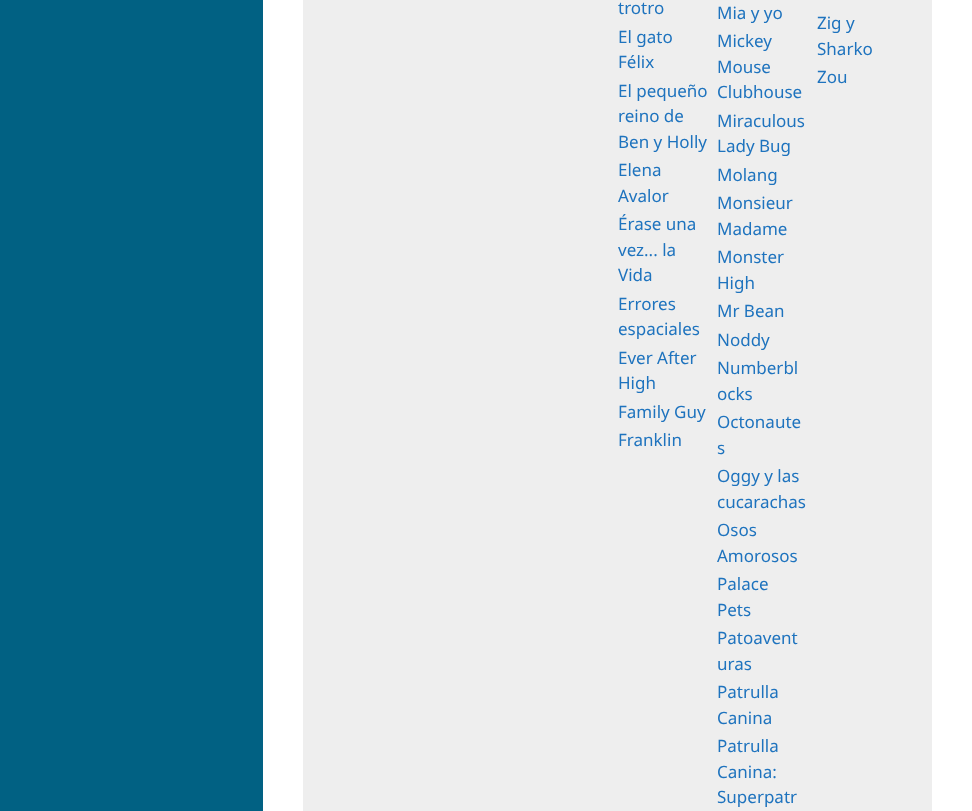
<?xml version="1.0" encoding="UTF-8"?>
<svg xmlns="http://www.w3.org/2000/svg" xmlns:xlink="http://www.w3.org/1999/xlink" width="972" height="811">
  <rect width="100%" height="100%" fill="#016183" />
  <rect x="263" width="709" height="811" fill="#ffffff" />
  <rect x="303" width="629" height="811" fill="#eeeeee" />
  <text x="618" y="14" style="font-family: Noto Sans; font-size: 17px; fill: #1e73be">trotro</text>
  <text x="618" y="43" style="font-family: Noto Sans; font-size: 17px; fill: #1e73be">El gato</text>
  <text x="618" y="68" style="font-family: Noto Sans; font-size: 17px; fill: #1e73be">Félix</text>
  <text x="618" y="97" style="font-family: Noto Sans; font-size: 17px; fill: #1e73be">El pequeño</text>
  <text x="618" y="122" style="font-family: Noto Sans; font-size: 17px; fill: #1e73be">reino de</text>
  <text x="618" y="148" style="font-family: Noto Sans; font-size: 17px; fill: #1e73be">Ben y Holly</text>
  <text x="618" y="176" style="font-family: Noto Sans; font-size: 17px; fill: #1e73be">Elena</text>
  <text x="618" y="202" style="font-family: Noto Sans; font-size: 17px; fill: #1e73be">Avalor</text>
  <text x="618" y="230" style="font-family: Noto Sans; font-size: 17px; fill: #1e73be">Érase una</text>
  <text x="618" y="256" style="font-family: Noto Sans; font-size: 17px; fill: #1e73be">vez... la</text>
  <text x="618" y="281" style="font-family: Noto Sans; font-size: 17px; fill: #1e73be">Vida</text>
  <text x="618" y="310" style="font-family: Noto Sans; font-size: 17px; fill: #1e73be">Errores</text>
  <text x="618" y="335" style="font-family: Noto Sans; font-size: 17px; fill: #1e73be">espaciales</text>
  <text x="618" y="364" style="font-family: Noto Sans; font-size: 17px; fill: #1e73be">Ever After</text>
  <text x="618" y="389" style="font-family: Noto Sans; font-size: 17px; fill: #1e73be">High</text>
  <text x="618" y="418" style="font-family: Noto Sans; font-size: 17px; fill: #1e73be">Family Guy</text>
  <text x="618" y="446" style="font-family: Noto Sans; font-size: 17px; fill: #1e73be">Franklin</text>
  <text x="717" y="19" style="font-family: Noto Sans; font-size: 17px; fill: #1e73be">Mia y yo</text>
  <text x="717" y="47" style="font-family: Noto Sans; font-size: 17px; fill: #1e73be">Mickey</text>
  <text x="717" y="73" style="font-family: Noto Sans; font-size: 17px; fill: #1e73be">Mouse</text>
  <text x="717" y="98" style="font-family: Noto Sans; font-size: 17px; fill: #1e73be">Clubhouse</text>
  <text x="717" y="127" style="font-family: Noto Sans; font-size: 17px; fill: #1e73be">Miraculous</text>
  <text x="717" y="152" style="font-family: Noto Sans; font-size: 17px; fill: #1e73be">Lady Bug</text>
  <text x="717" y="181" style="font-family: Noto Sans; font-size: 17px; fill: #1e73be">Molang</text>
  <text x="717" y="209" style="font-family: Noto Sans; font-size: 17px; fill: #1e73be">Monsieur</text>
  <text x="717" y="235" style="font-family: Noto Sans; font-size: 17px; fill: #1e73be">Madame</text>
  <text x="717" y="263" style="font-family: Noto Sans; font-size: 17px; fill: #1e73be">Monster</text>
  <text x="717" y="289" style="font-family: Noto Sans; font-size: 17px; fill: #1e73be">High</text>
  <text x="717" y="317" style="font-family: Noto Sans; font-size: 17px; fill: #1e73be">Mr Bean</text>
  <text x="717" y="346" style="font-family: Noto Sans; font-size: 17px; fill: #1e73be">Noddy</text>
  <text x="717" y="374" style="font-family: Noto Sans; font-size: 17px; fill: #1e73be">Numberbl</text>
  <text x="717" y="400" style="font-family: Noto Sans; font-size: 17px; fill: #1e73be">ocks</text>
  <text x="717" y="428" style="font-family: Noto Sans; font-size: 17px; fill: #1e73be">Octonaute</text>
  <text x="717" y="454" style="font-family: Noto Sans; font-size: 17px; fill: #1e73be">s</text>
  <text x="717" y="482" style="font-family: Noto Sans; font-size: 17px; fill: #1e73be">Oggy y las</text>
  <text x="717" y="508" style="font-family: Noto Sans; font-size: 17px; fill: #1e73be">cucarachas</text>
  <text x="717" y="536" style="font-family: Noto Sans; font-size: 17px; fill: #1e73be">Osos</text>
  <text x="717" y="562" style="font-family: Noto Sans; font-size: 17px; fill: #1e73be">Amorosos</text>
  <text x="717" y="590" style="font-family: Noto Sans; font-size: 17px; fill: #1e73be">Palace</text>
  <text x="717" y="616" style="font-family: Noto Sans; font-size: 17px; fill: #1e73be">Pets</text>
  <text x="717" y="644" style="font-family: Noto Sans; font-size: 17px; fill: #1e73be">Patoavent</text>
  <text x="717" y="670" style="font-family: Noto Sans; font-size: 17px; fill: #1e73be">uras</text>
  <text x="717" y="698" style="font-family: Noto Sans; font-size: 17px; fill: #1e73be">Patrulla</text>
  <text x="717" y="724" style="font-family: Noto Sans; font-size: 17px; fill: #1e73be">Canina</text>
  <text x="717" y="752" style="font-family: Noto Sans; font-size: 17px; fill: #1e73be">Patrulla</text>
  <text x="717" y="778" style="font-family: Noto Sans; font-size: 17px; fill: #1e73be">Canina:</text>
  <text x="717" y="803" style="font-family: Noto Sans; font-size: 17px; fill: #1e73be">Superpatr</text>
  <text x="817" y="29" style="font-family: Noto Sans; font-size: 17px; fill: #1e73be">Zig y</text>
  <text x="817" y="55" style="font-family: Noto Sans; font-size: 17px; fill: #1e73be">Sharko</text>
  <text x="817" y="83" style="font-family: Noto Sans; font-size: 17px; fill: #1e73be">Zou</text>
</svg>
